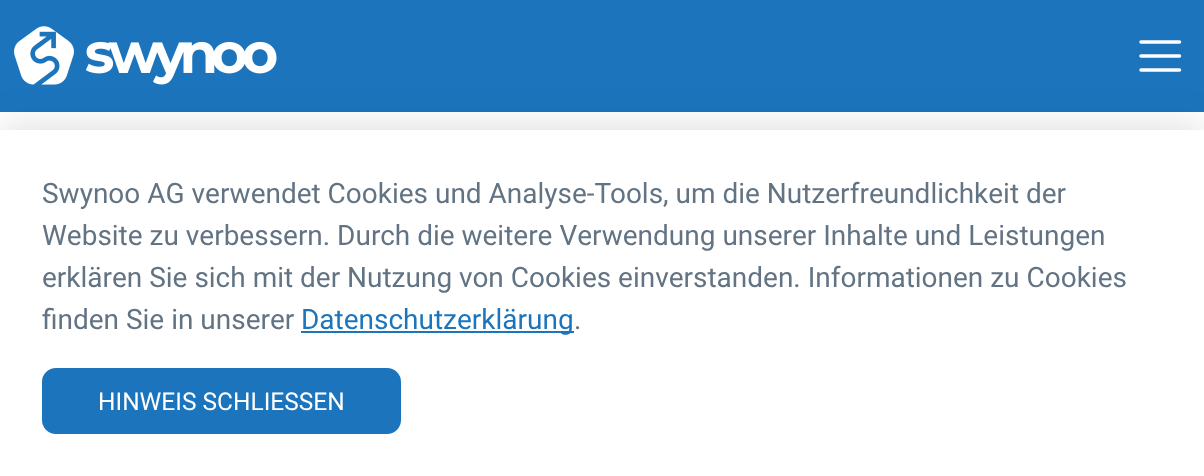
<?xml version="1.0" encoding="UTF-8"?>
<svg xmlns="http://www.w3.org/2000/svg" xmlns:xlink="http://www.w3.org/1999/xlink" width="1204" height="476">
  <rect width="100%" height="100%" fill="#ffffff" />
  <rect width="1204" height="112" fill="#1c75bc" />
  <image x="14" y="26" width="263" height="59" xlink:href="image1.png" />
  <path d="M 1141 42 h 38.5 m -38.5 14 h 38.5 m -38.5 14 h 38.5" fill="none" stroke="#ffffff" stroke-width="3.5" stroke-linecap="round" />
  <rect y="130" width="1204" height="346" fill="#000000" fill-opacity="0.15" filter="blur(21px)" />
  <rect y="130" width="1204" height="346" fill="#ffffff" />
  <rect x="301" y="331" width="273" height="2" fill="#1c75bc" />
  <rect x="44" y="370" width="355" height="62" rx="12" fill="#1c75bc" stroke="#1c75bc" stroke-width="4" />
  <text x="42" y="203" style="font-family: Roboto; font-size: 28px; fill: #627383">Swynoo AG verwendet Cookies und Analyse-Tools, um die Nutzerfreundlichkeit der</text>
  <text x="42" y="245" style="font-family: Roboto; font-size: 28px; fill: #627383">Website zu verbessern. Durch die weitere Verwendung unserer Inhalte und Leistungen</text>
  <text x="42" y="287" style="font-family: Roboto; font-size: 28px; fill: #627383">erklären Sie sich mit der Nutzung von Cookies einverstanden. Informationen zu Cookies</text>
  <text x="42" y="329" style="font-family: Roboto; font-size: 28px; fill: #627383">finden Sie in unserer</text>
  <text x="301" y="329" style="font-family: Roboto; font-size: 28px; fill: #1c75bc">Datenschutzerklärung</text>
  <text x="574" y="329" style="font-family: Roboto; font-size: 28px; fill: #627383">.</text>
  <text x="98" y="410" style="font-family: Roboto; font-size: 24.5px; fill: #ffffff">HINWEIS SCHLIESSEN</text>
</svg>
